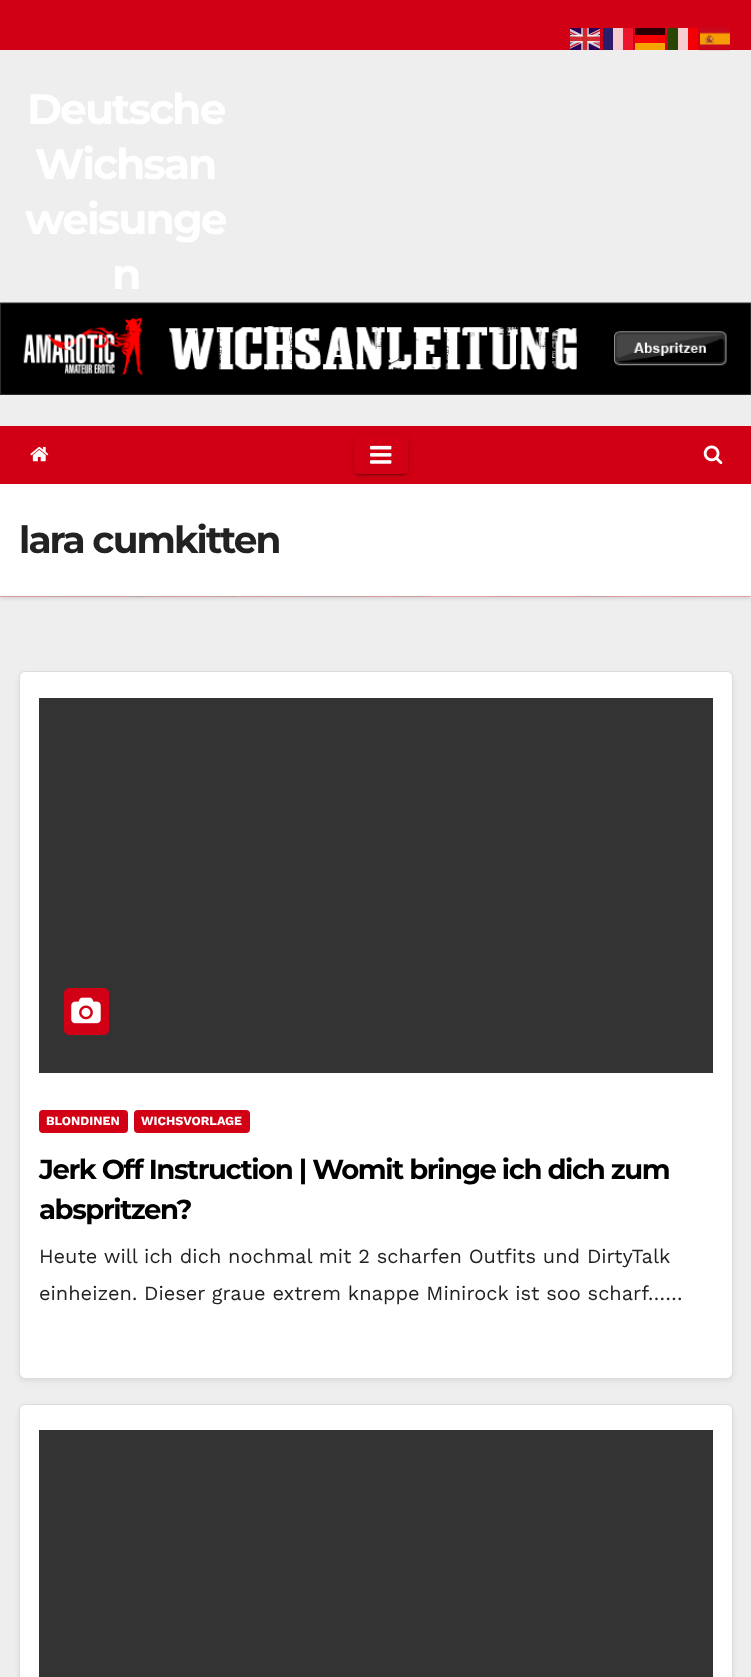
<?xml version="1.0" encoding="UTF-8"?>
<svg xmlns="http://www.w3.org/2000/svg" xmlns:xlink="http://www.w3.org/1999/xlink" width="751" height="1677">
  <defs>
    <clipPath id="clip1"><path d="M 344 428 h 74 v 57 h -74 z m 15 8 h 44 c 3 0 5 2 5 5 v 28 c 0 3 -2 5 -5 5 h -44 c -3 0 -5 -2 -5 -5 v -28 c 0 -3 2 -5 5 -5 z" clip-rule="evenodd" /></clipPath>
    <clipPath id="clip2"><path d="M 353 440 h 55 v 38 h -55 z m 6 -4 h 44 c 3 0 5 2 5 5 v 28 c 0 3 -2 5 -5 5 h -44 c -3 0 -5 -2 -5 -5 v -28 c 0 -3 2 -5 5 -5 z" clip-rule="evenodd" /></clipPath>
    <clipPath id="clip3"><path d="M 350 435 h 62 v 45 h -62 z m 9 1 h 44 c 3 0 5 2 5 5 v 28 c 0 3 -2 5 -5 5 h -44 c -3 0 -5 -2 -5 -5 v -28 c 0 -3 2 -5 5 -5 z" clip-rule="evenodd" /></clipPath>
  </defs>
  <rect width="100%" height="100%" fill="#eeeeee" />
  <rect width="751" height="50" fill="#d10014" />
  <image x="570" y="28" width="30" height="22" xlink:href="image1.png" />
  <rect x="603" y="28" width="10" height="22" fill="#2a1e6a" />
  <rect x="613" y="28" width="10" height="22" fill="#f6ccd0" />
  <rect x="623" y="28" width="10" height="22" fill="#ec132a" />
  <rect x="635" y="28" width="30" height="7" fill="#2a0004" />
  <rect x="668" y="28" width="10" height="22" fill="#2a4604" />
  <rect x="678" y="28" width="10" height="22" fill="#f6ccd0" />
  <rect x="688" y="28" width="10" height="22" fill="#f30004" />
  <image x="700" y="27" width="30" height="24" xlink:href="image2.png" />
  <rect x="635" y="35" width="30" height="8" fill="#f60004" />
  <rect x="635" y="43" width="30" height="7" fill="#f6a304" />
  <image x="0" y="302" width="751" height="93" xlink:href="image3.png" />
  <rect y="485" width="751" height="113" fill="#000000" fill-opacity="0.15" filter="blur(2px)" />
  <rect y="426" width="751" height="58" fill="#d10014" />
  <image x="30" y="446" width="19" height="16" xlink:href="image4.png" />
  <rect y="484" width="751" height="112" fill="#ffffff" />
  <g clip-path="url(#clip1)">
    <rect x="354" y="438" width="54" height="37" rx="5" fill="#000000" fill-opacity="0.12" filter="blur(3px)" />
  </g>
  <g clip-path="url(#clip2)">
    <rect x="356" y="443" width="49" height="32" rx="2.5" fill="#000000" fill-opacity="0.2" filter="blur(0.5px)" />
  </g>
  <g clip-path="url(#clip3)">
    <rect x="354" y="439" width="54" height="37" rx="5" fill="#000000" fill-opacity="0.14" filter="blur(1px)" />
  </g>
  <image x="370" y="445" width="22" height="19" xlink:href="image5.png" />
  <image x="703" y="445" width="20" height="20" xlink:href="image6.png" />
  <image x="0" y="596" width="751" height="1" xlink:href="image7.png" />
  <rect x="19" y="674" width="714" height="707" rx="6" fill="#000000" fill-opacity="0.08" filter="blur(2.5px)" />
  <rect x="19.5" y="671.5" width="713" height="707" rx="5.5" fill="#ffffff" stroke="#dddcdc" />
  <rect x="39" y="698" width="674" height="375" fill="#333333" />
  <rect x="64" y="988" width="45" height="47" rx="5" fill="#d10014" />
  <image x="71" y="997" width="30" height="27" xlink:href="image8.png" />
  <rect x="39" y="1110" width="89" height="23" rx="4" fill="#d10014" />
  <rect x="134" y="1110" width="116" height="23" rx="4" fill="#d10014" />
  <rect x="19" y="1406" width="714" height="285" rx="6" fill="#000000" fill-opacity="0.08" filter="blur(2.5px)" />
  <rect x="19.5" y="1404.5" width="713" height="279" rx="5.5" fill="#ffffff" stroke="#dddcdc" />
  <rect x="39" y="1430" width="674" height="247" fill="#333333" />
  <text x="27" y="124" style="font-family: Montserrat; font-size: 42.5px; font-weight: bold; letter-spacing: -2px; fill: #ffffff">Deutsche</text>
  <text x="35" y="179" style="font-family: Montserrat; font-size: 42.5px; font-weight: bold; letter-spacing: -2px; fill: #ffffff">Wichsan</text>
  <text x="25" y="234" style="font-family: Montserrat; font-size: 42.5px; font-weight: bold; letter-spacing: -2px; fill: #ffffff">weisunge</text>
  <text x="112" y="289" style="font-family: Montserrat; font-size: 42.5px; font-weight: bold; letter-spacing: -2px; fill: #ffffff">n</text>
  <text x="19" y="553" style="font-family: Montserrat; font-size: 37.5px; font-weight: bold; letter-spacing: -1.9px; fill: #222222">lara cumkitten</text>
  <text x="46" y="1125" style="font-family: Work Sans; font-size: 12.5px; font-weight: bold; fill: #ffffff">BLONDINEN</text>
  <text x="141" y="1125" style="font-family: Work Sans; font-size: 12.5px; font-weight: bold; fill: #ffffff">WICHSVORLAGE</text>
  <text x="39" y="1179" style="font-family: Montserrat; font-size: 27.5px; font-weight: bold; letter-spacing: -1.4px; fill: #000000">Jerk Off Instruction | Womit bringe ich dich zum</text>
  <text x="39" y="1219" style="font-family: Montserrat; font-size: 27.5px; font-weight: bold; letter-spacing: -1.4px; fill: #000000">abspritzen?</text>
  <text x="39" y="1263" style="font-family: Work Sans; font-size: 20px; fill: #222222">Heute will ich dich nochmal mit 2 scharfen Outfits und DirtyTalk</text>
  <text x="39" y="1300" style="font-family: Work Sans; font-size: 20px; fill: #222222">einheizen. Dieser graue extrem knappe Minirock ist soo scharf……</text>
</svg>
